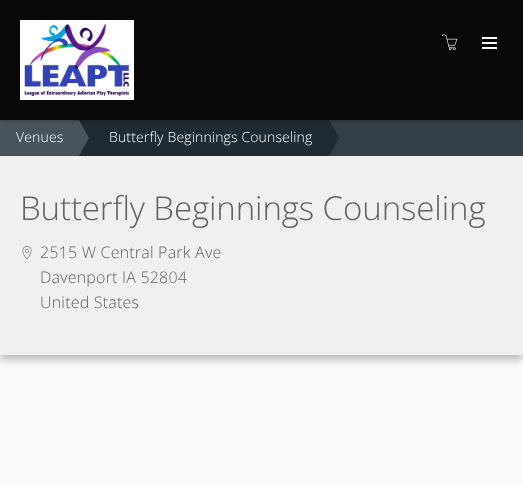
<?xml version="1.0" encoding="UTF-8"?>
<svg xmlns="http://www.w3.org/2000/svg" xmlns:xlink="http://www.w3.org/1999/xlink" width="523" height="485">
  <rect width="100%" height="100%" fill="#fafafa" />
  <rect y="124" width="523" height="235" fill="#798187" fill-opacity="0.6" filter="blur(5px)" />
  <rect x="328" y="120" width="195" height="36" fill="#323f48" />
  <rect y="120" width="79" height="35" fill="#47545d" />
  <rect x="79" y="120" width="249" height="35" fill="#1e2b34" />
  <rect x="79" y="155" width="249" height="1" fill="#1d2931" />
  <path d="M 79 156 v -36 l 10 18 z" fill="#47545d" />
  <path d="M 329 156 v -36 l 10 18 z" fill="#1e2b34" />
  <path d="M 328 156 v -36 l 10 18 z" fill="#1e2b34" />
  <rect y="1" width="523" height="120" fill="#000000" fill-opacity="0.25" filter="blur(1.5px)" />
  <rect width="523" height="120" fill="#080808" />
  <image x="20" y="20" width="114" height="80" xlink:href="image1.png" />
  <image x="442" y="34" width="16" height="16" xlink:href="image2.png" />
  <rect x="482" y="37" width="15" height="2" fill="#f9f9f9" />
  <rect x="482" y="42" width="15" height="2" fill="#f9f9f9" />
  <rect x="482" y="47" width="15" height="2" fill="#f9f9f9" />
  <rect y="156" width="523" height="199" fill="#f0f0f0" />
  <rect y="155" width="79" height="1" fill="#435058" />
  <image x="22" y="246" width="10" height="14" xlink:href="image3.png" />
  <text x="16" y="142" style="font-family: Open Sans; font-size: 14px; font-weight: 300; letter-spacing: 0.15px; fill: #ffffff">Venues</text>
  <text x="109" y="142" style="font-family: Open Sans; font-size: 14px; font-weight: 300; letter-spacing: 0.15px; fill: #ffffff">Butterfly Beginnings Counseling</text>
  <text x="20" y="220" style="font-family: Open Sans; font-size: 33px; font-weight: 300; letter-spacing: -0.1px; fill: #626262">Butterfly Beginnings Counseling</text>
  <text x="40" y="258" style="font-family: Open Sans; font-size: 16px; font-weight: 300; letter-spacing: 0.2px; fill: #626262">2515 W Central Park Ave</text>
  <text x="40" y="283" style="font-family: Open Sans; font-size: 16px; font-weight: 300; letter-spacing: 0.2px; fill: #626262">Davenport IA 52804</text>
  <text x="40" y="308" style="font-family: Open Sans; font-size: 16px; font-weight: 300; letter-spacing: 0.2px; fill: #626262">United States</text>
</svg>
